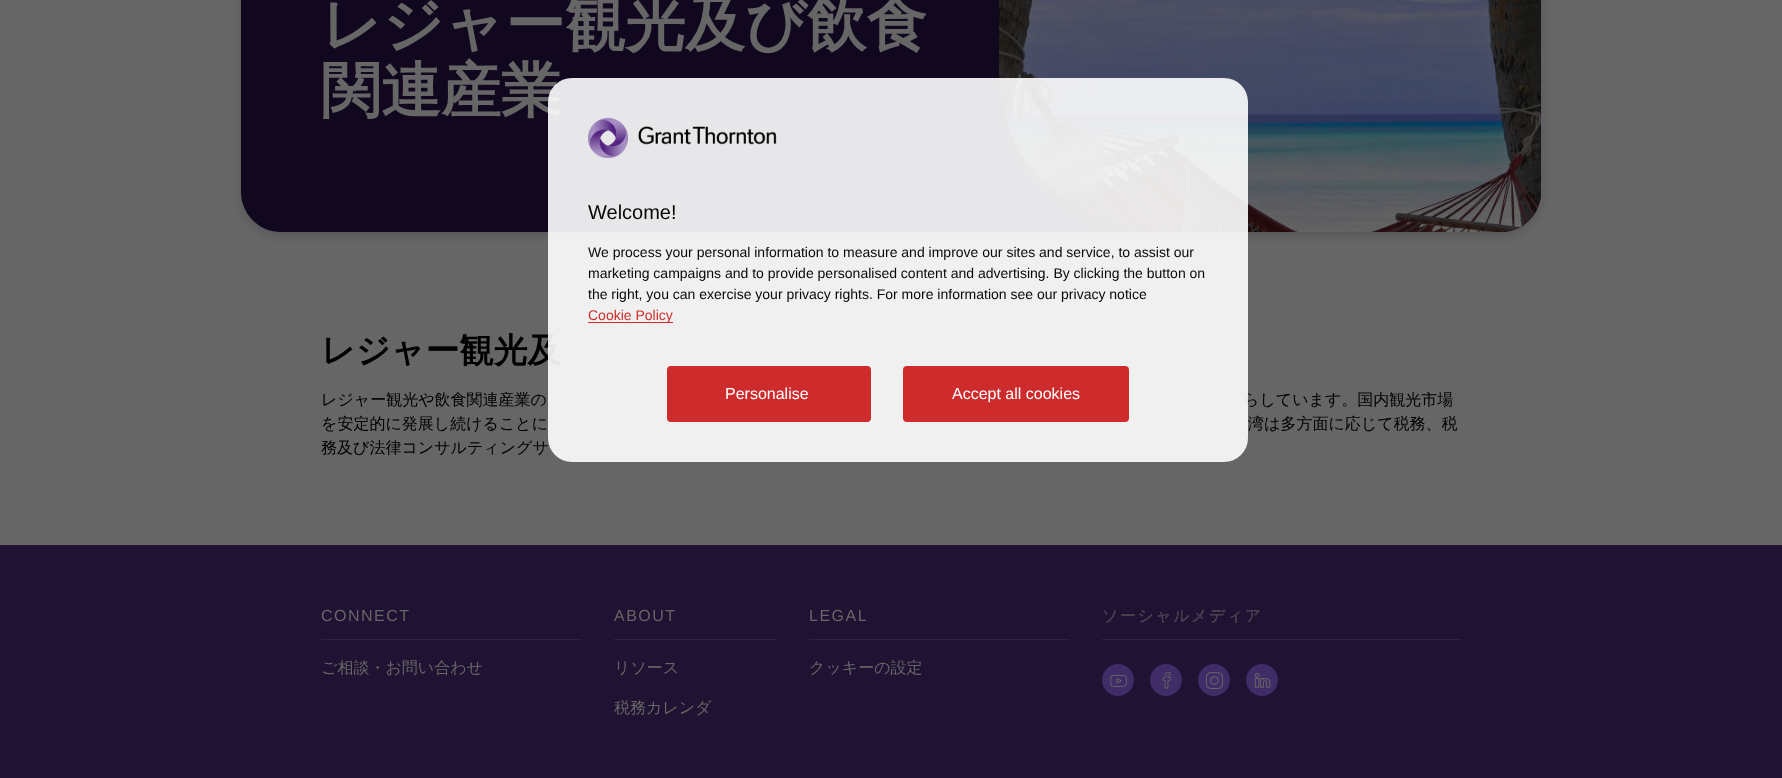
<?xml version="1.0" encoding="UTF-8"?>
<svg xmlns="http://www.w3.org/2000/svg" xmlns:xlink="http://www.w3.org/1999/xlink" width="1782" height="778">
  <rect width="100%" height="100%" fill="#666666" />
  <rect x="241" y="-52" width="1300" height="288" rx="40" fill="#11081f" fill-opacity="0.16" filter="blur(4px)" />
  <path d="M 281 -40 h 718 v 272 h -718 c -22 0 -40 -18 -40 -40 v -192 c 0 -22 18 -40 40 -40 z" fill="#11081f" />
  <rect x="999" width="159" height="232" fill="#11081f" />
  <path d="M 999 -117 h 502 c 22 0 40 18 40 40 v 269 c 0 22 -18 40 -40 40 h -342 c -88.5 0 -160 -71.5 -160 -160 z" fill="#11081f" />
  <image x="998" y="0" width="543" height="232" xlink:href="image1.png" />
  <rect y="545" width="1782" height="233" fill="#201233" />
  <rect x="321" y="639" width="261" height="1" fill="#2e233d" />
  <rect x="614" y="639" width="163" height="1" fill="#2e233d" />
  <rect x="809" y="639" width="261" height="1" fill="#2e233d" />
  <rect x="1102" y="639" width="359" height="1" fill="#2e233d" />
  <circle cx="1118" cy="680" r="16" fill="#402c66" />
  <image x="1110" y="674" width="17" height="13" xlink:href="image2.png" />
  <circle cx="1166" cy="680" r="16" fill="#402c66" />
  <image x="1162" y="672" width="9" height="17" xlink:href="image3.png" />
  <circle cx="1214" cy="680" r="16" fill="#402c66" />
  <image x="1206" y="672" width="17" height="17" xlink:href="image4.png" />
  <circle cx="1262" cy="680" r="16" fill="#402c66" />
  <image x="1254" y="673" width="17" height="15" xlink:href="image5.png" />
  <text x="321" y="45" style="font-family: WenQuanYi Zen Hei; font-size: 60px; font-weight: bold; fill: #666666">レジャー観光及び飲食</text>
  <text x="321" y="111" style="font-family: WenQuanYi Zen Hei; font-size: 60px; font-weight: bold; fill: #666666">関連産業</text>
  <text x="321" y="362" style="font-family: WenQuanYi Zen Hei; font-size: 34px; font-weight: bold; fill: #000000">レジャー観光及</text>
  <text x="321" y="405" style="font-family: WenQuanYi Zen Hei; font-size: 16px; font-weight: 500; fill: #000000">レジャー観光や飲食関連産業の</text>
  <text x="1243" y="405" style="font-family: WenQuanYi Zen Hei; font-size: 16px; font-weight: 500; fill: #000000">らしています。国内観光市場</text>
  <text x="321" y="429" style="font-family: WenQuanYi Zen Hei; font-size: 16px; font-weight: 500; fill: #000000">を安定的に発展し続けることに</text>
  <text x="1248" y="429" style="font-family: WenQuanYi Zen Hei; font-size: 16px; font-weight: 500; fill: #000000">湾は多方面に応じて税務、税</text>
  <text x="321" y="453" style="font-family: WenQuanYi Zen Hei; font-size: 16px; font-weight: 500; fill: #000000">務及び法律コンサルティングサ</text>
  <text x="321" y="621" style="font-family: Liberation Sans; font-size: 16px; letter-spacing: 1.5px; fill: #666666">CONNECT</text>
  <text x="321" y="673" style="font-family: WenQuanYi Zen Hei; font-size: 16px; font-weight: 500; fill: #666666">ご相談・お問い合わせ</text>
  <text x="614" y="621" style="font-family: Liberation Sans; font-size: 16px; letter-spacing: 1.5px; fill: #666666">ABOUT</text>
  <text x="614" y="673" style="font-family: WenQuanYi Zen Hei; font-size: 16px; font-weight: 500; fill: #666666">リソース</text>
  <text x="614" y="713" style="font-family: WenQuanYi Zen Hei; font-size: 16px; font-weight: 500; fill: #666666">税務カレンダ</text>
  <text x="809" y="621" style="font-family: Liberation Sans; font-size: 16px; letter-spacing: 1.5px; fill: #666666">LEGAL</text>
  <text x="809" y="673" style="font-family: WenQuanYi Zen Hei; font-size: 16px; font-weight: 500; fill: #666666">クッキーの設定</text>
  <text x="1102" y="621" style="font-family: WenQuanYi Zen Hei; font-size: 16px; font-weight: 500; letter-spacing: 1.5px; fill: #666666">ソーシャルメディア</text>
  <text x="1102" y="621" style="font-family: WenQuanYi Zen Hei; font-size: 16px; font-weight: 500; letter-spacing: 1.5px; fill: #433c4d">ソーシャルメディア</text>
  <rect x="548" y="78" width="700" height="384" rx="24" fill="#ffffff" fill-opacity="0.9" />
  <image x="588" y="117" width="189" height="41" xlink:href="image6.png" />
  <text x="588" y="219" style="font-family: Liberation Sans; font-size: 20px; fill: #070707">Welcome!</text>
  <text x="588" y="257" style="font-family: Liberation Sans; font-size: 14px; fill: #070707">We process your personal information to measure and improve our sites and service, to assist our</text>
  <text x="588" y="278" style="font-family: Liberation Sans; font-size: 14px; fill: #070707">marketing campaigns and to provide personalised content and advertising. By clicking the button on</text>
  <text x="588" y="299" style="font-family: Liberation Sans; font-size: 14px; fill: #070707">the right, you can exercise your privacy rights. For more information see our privacy notice</text>
  <rect x="588" y="322" width="85" height="1" fill="#ce2c2c" />
  <text x="588" y="320" style="font-family: Liberation Sans; font-size: 14px; fill: #ce2c2c">Cookie Policy</text>
  <rect x="668" y="367" width="202" height="54" rx="3" fill="#ce2c2c" stroke="#ce2c2c" stroke-width="2" />
  <text x="725" y="399" style="font-family: Liberation Sans; font-size: 16px; fill: #ffffff">Personalise</text>
  <rect x="904" y="367" width="224" height="54" rx="3" fill="#ce2c2c" stroke="#ce2c2c" stroke-width="2" />
  <text x="952" y="399" style="font-family: Liberation Sans; font-size: 16px; fill: #ffffff">Accept all cookies</text>
</svg>
